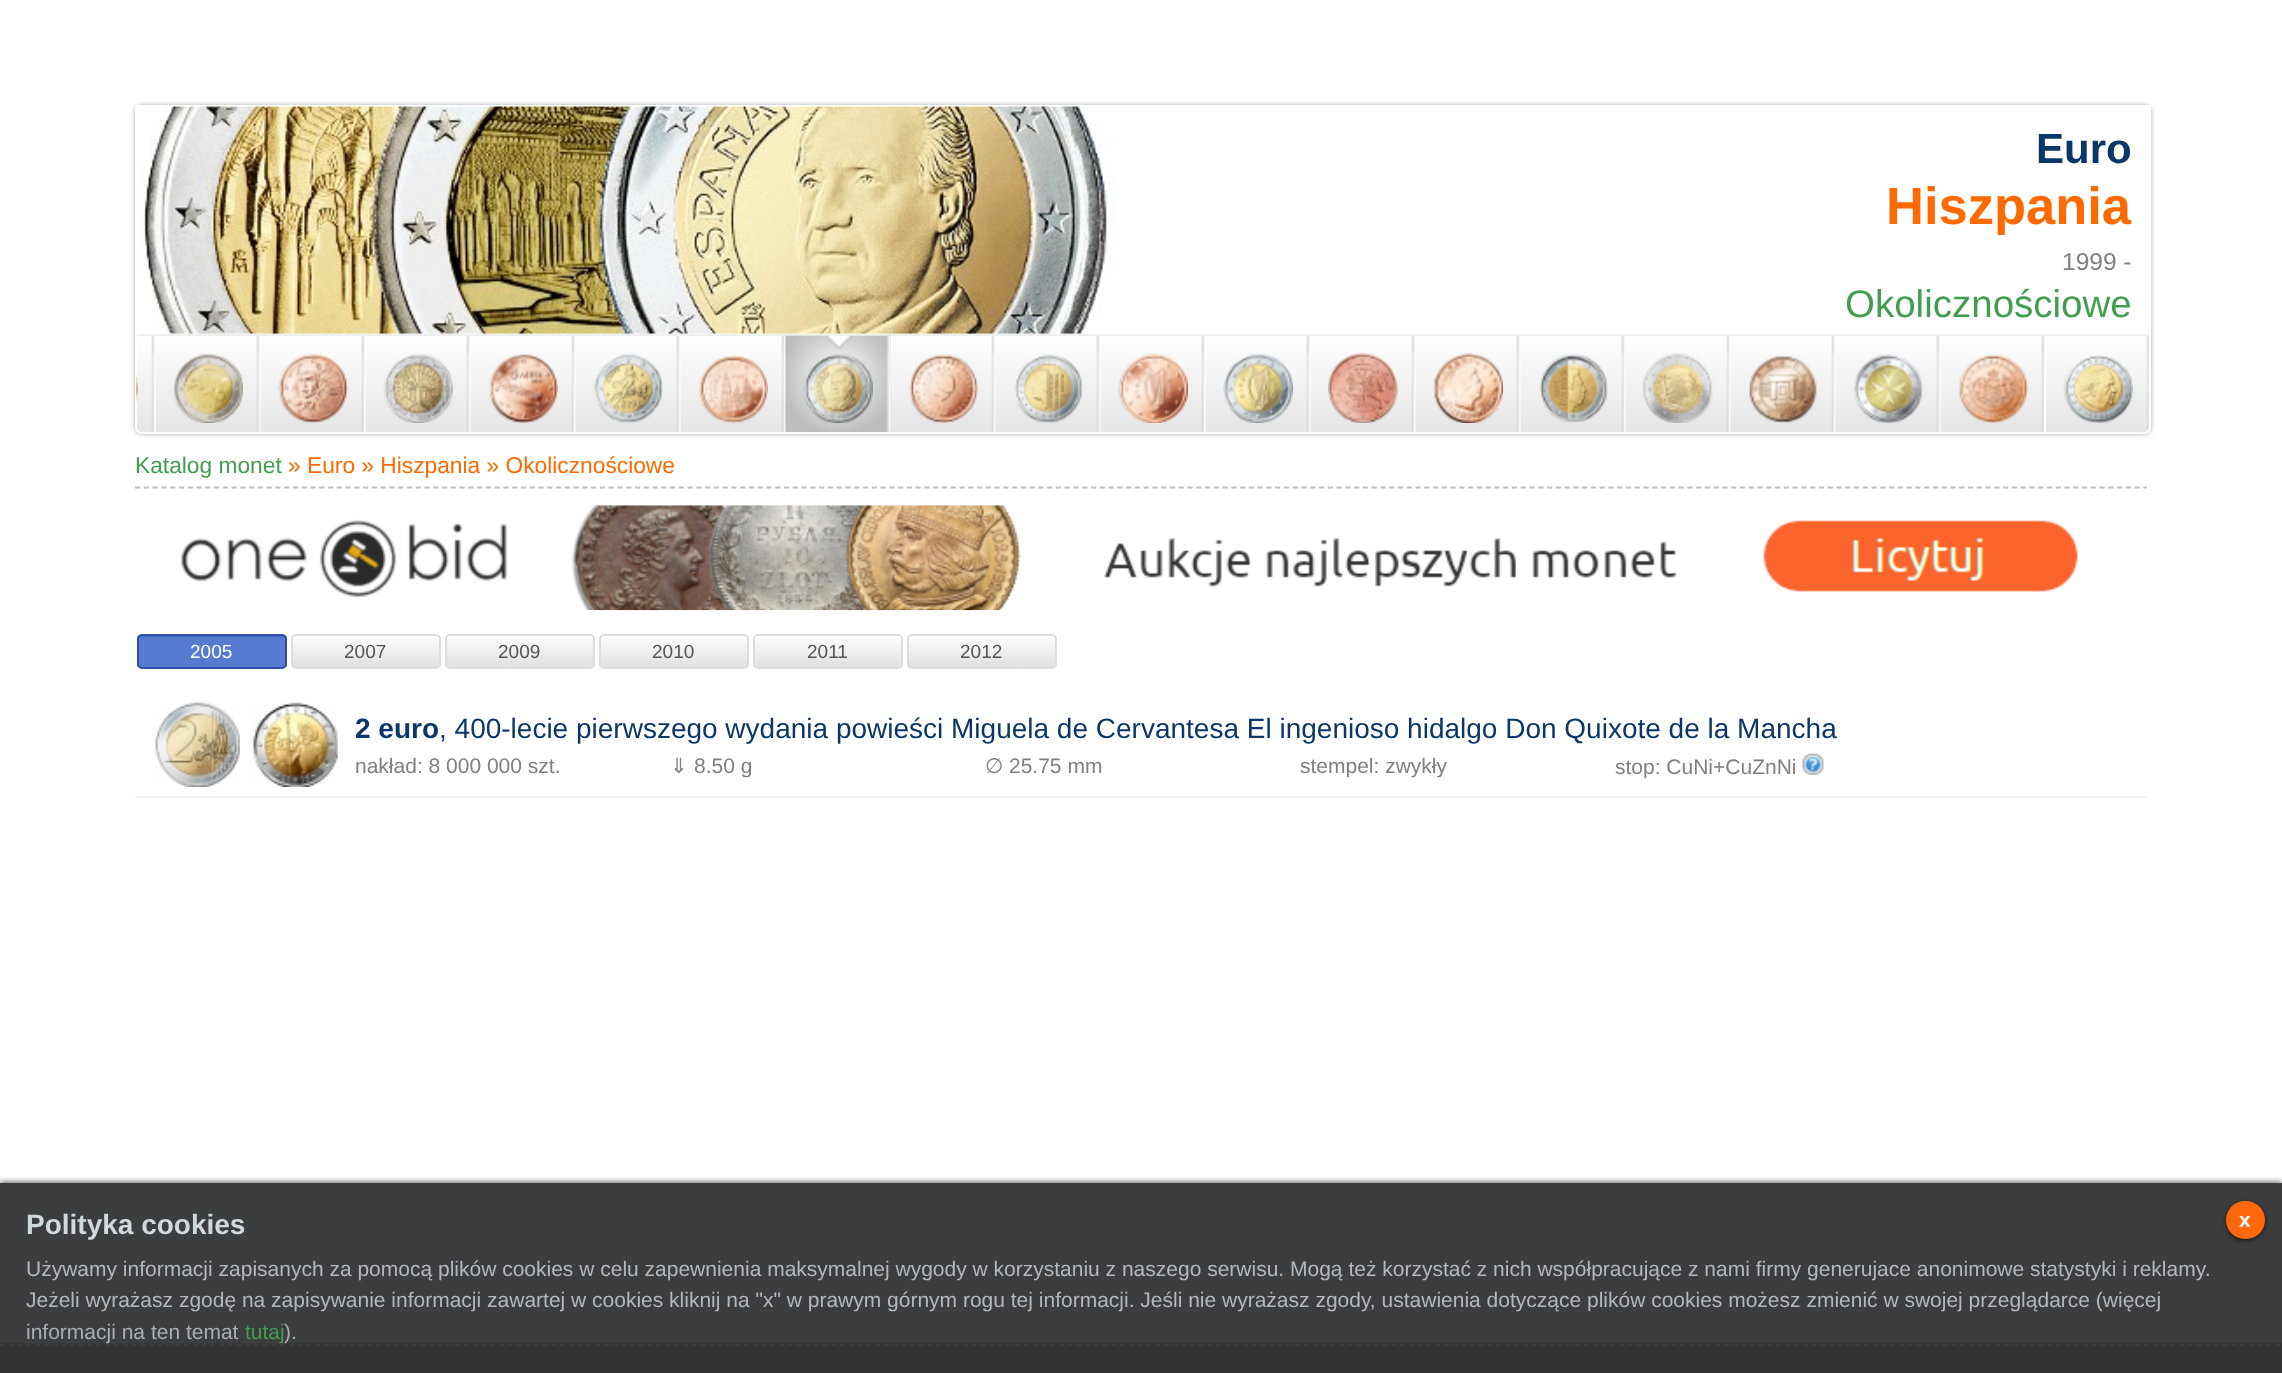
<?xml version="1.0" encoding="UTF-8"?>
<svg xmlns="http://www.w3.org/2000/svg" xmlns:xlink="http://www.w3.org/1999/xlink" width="2282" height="1373">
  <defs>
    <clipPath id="clip1"><path d="M 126 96 h 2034 v 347 h -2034 z m 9 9 h 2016 v 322 c 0 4 -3 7 -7 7 h -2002 c -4 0 -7 -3 -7 -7 z" clip-rule="evenodd" /></clipPath>
    <linearGradient id="g1" gradientUnits="userSpaceOnUse" x1="1143" y1="336" x2="1143" y2="432"><stop offset="0" stop-color="#ffffff" /><stop offset="1" stop-color="#e5e5e5" /></linearGradient>
    <clipPath id="clip2"><rect x="137" y="634" width="150" height="35" rx="5" /></clipPath>
    <linearGradient id="g2" gradientUnits="userSpaceOnUse" x1="212" y1="667" x2="212" y2="635"><stop offset="0.93" stop-color="#557cd1" /><stop offset="1" stop-color="#304ea6" /></linearGradient>
    <clipPath id="clip3"><rect x="291" y="634" width="150" height="35" rx="5" /></clipPath>
    <linearGradient id="g3" gradientUnits="userSpaceOnUse" x1="366" y1="635" x2="366" y2="667"><stop offset="0" stop-color="#ffffff" /><stop offset="1" stop-color="#e0e0e0" /></linearGradient>
    <clipPath id="clip4"><rect x="445" y="634" width="150" height="35" rx="5" /></clipPath>
    <linearGradient id="g4" gradientUnits="userSpaceOnUse" x1="520" y1="635" x2="520" y2="667"><stop offset="0" stop-color="#ffffff" /><stop offset="1" stop-color="#e0e0e0" /></linearGradient>
    <clipPath id="clip5"><rect x="599" y="634" width="150" height="35" rx="5" /></clipPath>
    <linearGradient id="g5" gradientUnits="userSpaceOnUse" x1="674" y1="635" x2="674" y2="667"><stop offset="0" stop-color="#ffffff" /><stop offset="1" stop-color="#e0e0e0" /></linearGradient>
    <clipPath id="clip6"><rect x="753" y="634" width="150" height="35" rx="5" /></clipPath>
    <linearGradient id="g6" gradientUnits="userSpaceOnUse" x1="828" y1="635" x2="828" y2="667"><stop offset="0" stop-color="#ffffff" /><stop offset="1" stop-color="#e0e0e0" /></linearGradient>
    <clipPath id="clip7"><rect x="907" y="634" width="150" height="35" rx="5" /></clipPath>
    <linearGradient id="g7" gradientUnits="userSpaceOnUse" x1="982" y1="635" x2="982" y2="667"><stop offset="0" stop-color="#ffffff" /><stop offset="1" stop-color="#e0e0e0" /></linearGradient>
    <clipPath id="clip8"><rect x="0" y="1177" width="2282" height="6" /></clipPath>
  </defs>
  <rect width="100%" height="100%" fill="#ffffff" />
  <rect y="1183" width="2282" height="161" fill="#3c3d3e" />
  <g clip-path="url(#clip1)">
    <rect x="135" y="105" width="2016" height="329" rx="7" fill="#aaaaaa" filter="blur(2.5px)" />
  </g>
  <path d="M 136 106 h 2014 v 321 c 0 3.5 -2.5 6 -6 6 h -2002 c -3.5 0 -6 -2.5 -6 -6 z" fill="none" stroke="#ffffff" stroke-width="2" />
  <image x="137" y="106" width="979" height="228" xlink:href="image1.png" />
  <path d="M 137 336 h 2012 v 91 c 0 3 -2 5 -5 5 h -2002 c -3 0 -5 -2 -5 -5 z" fill="url(#g1)" />
  <rect x="137" y="334" width="2012" height="2" fill="#efefef" />
  <image x="151" y="336" width="5" height="96" xlink:href="image2.png" />
  <image x="136" y="374" width="2" height="30" xlink:href="image3.png" />
  <image x="256" y="336" width="5" height="96" xlink:href="image4.png" />
  <image x="173" y="353" width="70" height="70" xlink:href="image5.png" />
  <image x="361" y="336" width="5" height="96" xlink:href="image4.png" />
  <image x="278" y="353" width="70" height="70" xlink:href="image6.png" />
  <image x="466" y="336" width="5" height="96" xlink:href="image7.png" />
  <image x="383" y="353" width="70" height="70" xlink:href="image8.png" />
  <image x="571" y="336" width="5" height="96" xlink:href="image7.png" />
  <image x="489" y="354" width="69" height="69" xlink:href="image9.png" />
  <image x="676" y="336" width="5" height="96" xlink:href="image10.png" />
  <image x="594" y="353" width="69" height="70" xlink:href="image11.png" />
  <image x="781" y="336" width="5" height="96" xlink:href="image10.png" />
  <image x="699" y="355" width="69" height="68" xlink:href="image12.png" />
  <image x="785" y="335" width="106" height="97" xlink:href="image13.png" />
  <image x="886" y="336" width="5" height="96" xlink:href="image14.png" />
  <image x="803" y="354" width="70" height="69" xlink:href="image15.png" />
  <image x="991" y="336" width="5" height="96" xlink:href="image16.png" />
  <image x="909" y="354" width="69" height="69" xlink:href="image17.png" />
  <image x="1096" y="336" width="5" height="96" xlink:href="image7.png" />
  <image x="1014" y="354" width="69" height="69" xlink:href="image18.png" />
  <image x="1201" y="336" width="5" height="96" xlink:href="image10.png" />
  <image x="1118" y="353" width="70" height="70" xlink:href="image19.png" />
  <image x="1306" y="336" width="5" height="96" xlink:href="image10.png" />
  <image x="1223" y="353" width="70" height="70" xlink:href="image20.png" />
  <image x="1411" y="336" width="5" height="96" xlink:href="image7.png" />
  <image x="1328" y="353" width="70" height="70" xlink:href="image21.png" />
  <image x="1516" y="336" width="5" height="96" xlink:href="image7.png" />
  <image x="1433" y="353" width="70" height="70" xlink:href="image22.png" />
  <image x="1621" y="336" width="5" height="96" xlink:href="image16.png" />
  <image x="1539" y="353" width="69" height="70" xlink:href="image23.png" />
  <image x="1726" y="336" width="5" height="96" xlink:href="image24.png" />
  <image x="1643" y="353" width="70" height="70" xlink:href="image25.png" />
  <image x="1831" y="336" width="5" height="96" xlink:href="image10.png" />
  <image x="1749" y="356" width="68" height="67" xlink:href="image26.png" />
  <image x="1936" y="336" width="5" height="96" xlink:href="image27.png" />
  <image x="1854" y="354" width="69" height="69" xlink:href="image28.png" />
  <image x="2041" y="336" width="5" height="96" xlink:href="image29.png" />
  <image x="1959" y="354" width="69" height="69" xlink:href="image30.png" />
  <image x="2146" y="336" width="3" height="95" xlink:href="image31.png" />
  <image x="2063" y="355" width="70" height="68" xlink:href="image32.png" />
  <path d="M 135 487.5 h 2012" fill="none" stroke="#c0c0c0" stroke-width="1.8" stroke-dasharray="5.25 3.52" />
  <image x="180" y="505" width="1898" height="106" xlink:href="image33.png" />
  <g clip-path="url(#clip2)">
    <rect x="137" y="635" width="150" height="32" fill="url(#g2)" />
  </g>
  <rect x="138" y="635" width="148" height="33" rx="4" fill="none" stroke="#304ea6" stroke-width="2" />
  <g clip-path="url(#clip3)">
    <rect x="291" y="635" width="150" height="32" fill="url(#g3)" />
  </g>
  <rect x="292" y="635" width="148" height="33" rx="4" fill="none" stroke="#dddddd" stroke-width="2" />
  <g clip-path="url(#clip4)">
    <rect x="445" y="635" width="150" height="32" fill="url(#g4)" />
  </g>
  <rect x="446" y="635" width="148" height="33" rx="4" fill="none" stroke="#dddddd" stroke-width="2" />
  <g clip-path="url(#clip5)">
    <rect x="599" y="635" width="150" height="32" fill="url(#g5)" />
  </g>
  <rect x="600" y="635" width="148" height="33" rx="4" fill="none" stroke="#dddddd" stroke-width="2" />
  <g clip-path="url(#clip6)">
    <rect x="753" y="635" width="150" height="32" fill="url(#g6)" />
  </g>
  <rect x="754" y="635" width="148" height="33" rx="4" fill="none" stroke="#dddddd" stroke-width="2" />
  <g clip-path="url(#clip7)">
    <rect x="907" y="635" width="150" height="32" fill="url(#g7)" />
  </g>
  <rect x="908" y="635" width="148" height="33" rx="4" fill="none" stroke="#dddddd" stroke-width="2" />
  <rect x="135" y="796" width="2012" height="2" fill="#f4f4f4" />
  <image x="154" y="701" width="86" height="86" xlink:href="image34.png" />
  <image x="252" y="702" width="86" height="85" xlink:href="image35.png" />
  <image x="1802" y="753" width="22" height="22" xlink:href="image36.png" />
  <image x="0" y="1343" width="2282" height="30" xlink:href="image37.png" />
  <path d="M 0 1345 h 2282" fill="none" stroke="#393a3b" stroke-width="1.8" stroke-dasharray="5.25 3.5" />
  <g clip-path="url(#clip8)">
    <rect y="1181" width="2282" height="191" fill="#0d0d0d" fill-opacity="0.5" filter="blur(2.5px)" />
  </g>
  <rect x="2226" y="1202" width="39" height="39" rx="19.5" fill="#0d0d0d" fill-opacity="0.75" filter="blur(2px)" />
  <rect x="2226" y="1201" width="39" height="38" rx="19" fill="#ff680d" />
  <text x="2036" y="163" style="font-family: Liberation Sans; font-size: 42px; font-weight: bold; fill: #0b3768">Euro</text>
  <text x="1886" y="224" style="font-family: Liberation Sans; font-size: 52.5px; font-weight: bold; fill: #fe6a00">Hiszpania</text>
  <text x="2062" y="270" style="font-family: Liberation Sans; font-size: 24.5px; fill: #808080">1999 -</text>
  <text x="1845" y="317" style="font-family: Liberation Sans; font-size: 38.5px; fill: #429e4f">Okolicznościowe</text>
  <text x="135" y="473" style="font-family: Liberation Sans; font-size: 22.75px; fill: #429e4f">Katalog monet</text>
  <text x="288" y="473" style="font-family: Liberation Sans; font-size: 22.75px; fill: #fe6a00">» Euro » Hiszpania » Okolicznościowe</text>
  <text x="190" y="658" style="font-family: Liberation Sans; font-size: 19px; fill: #ffffff">2005</text>
  <text x="344" y="658" style="font-family: Liberation Sans; font-size: 19px; fill: #555555">2007</text>
  <text x="498" y="658" style="font-family: Liberation Sans; font-size: 19px; fill: #555555">2009</text>
  <text x="652" y="658" style="font-family: Liberation Sans; font-size: 19px; fill: #555555">2010</text>
  <text x="807" y="658" style="font-family: Liberation Sans; font-size: 19px; fill: #555555">2011</text>
  <text x="960" y="658" style="font-family: Liberation Sans; font-size: 19px; fill: #555555">2012</text>
  <text x="355" y="738" style="font-family: Liberation Sans; font-size: 28px; font-weight: bold; fill: #0b3768">2 euro</text>
  <text x="439" y="738" style="font-family: Liberation Sans; font-size: 28px; fill: #0b3768">, 400-lecie pierwszego wydania powieści Miguela de Cervantesa El ingenioso hidalgo Don Quixote de la Mancha</text>
  <text x="355" y="773" style="font-family: Liberation Sans; font-size: 21px; fill: #808080">nakład: 8 000 000 szt.</text>
  <text x="670" y="773" style="font-family: DejaVu Sans; font-size: 21px; fill: #808080">⇓</text>
  <text x="694" y="773" style="font-family: Liberation Sans; font-size: 21px; fill: #808080">8.50 g</text>
  <text x="985" y="773" style="font-family: DejaVu Sans; font-size: 21px; fill: #808080">∅</text>
  <text x="1009" y="773" style="font-family: Liberation Sans; font-size: 21px; fill: #808080">25.75 mm</text>
  <text x="1300" y="773" style="font-family: Liberation Sans; font-size: 21px; fill: #808080">stempel: zwykły</text>
  <text x="1615" y="774" style="font-family: Liberation Sans; font-size: 21px; fill: #808080">stop: CuNi+CuZnNi</text>
  <text x="26" y="1234" style="font-family: Liberation Sans; font-size: 28px; font-weight: bold; fill: #d0d9dc">Polityka cookies</text>
  <text x="2239" y="1227" style="font-family: Liberation Sans; font-size: 21px; font-weight: bold; fill: #ffffff">x</text>
  <text x="26" y="1276" style="font-family: Liberation Sans; font-size: 21px; fill: #b3b8bf">Używamy informacji zapisanych za pomocą plików cookies w celu zapewnienia maksymalnej wygody w korzystaniu z naszego serwisu. Mogą też korzystać z nich współpracujące z nami firmy generujace anonimowe statystyki i reklamy.</text>
  <text x="26" y="1307" style="font-family: Liberation Sans; font-size: 21px; fill: #b3b8bf">Jeżeli wyrażasz zgodę na zapisywanie informacji zawartej w cookies kliknij na "x" w prawym górnym rogu tej informacji. Jeśli nie wyrażasz zgody, ustawienia dotyczące plików cookies możesz zmienić w swojej przeglądarce (więcej</text>
  <text x="26" y="1339" style="font-family: Liberation Sans; font-size: 21px; fill: #a9aeb6">informacji na ten temat</text>
  <text x="245" y="1339" style="font-family: Liberation Sans; font-size: 21px; fill: #429e4f">tutaj</text>
  <text x="284" y="1339" style="font-family: Liberation Sans; font-size: 21px; fill: #a9aeb6">).</text>
</svg>
